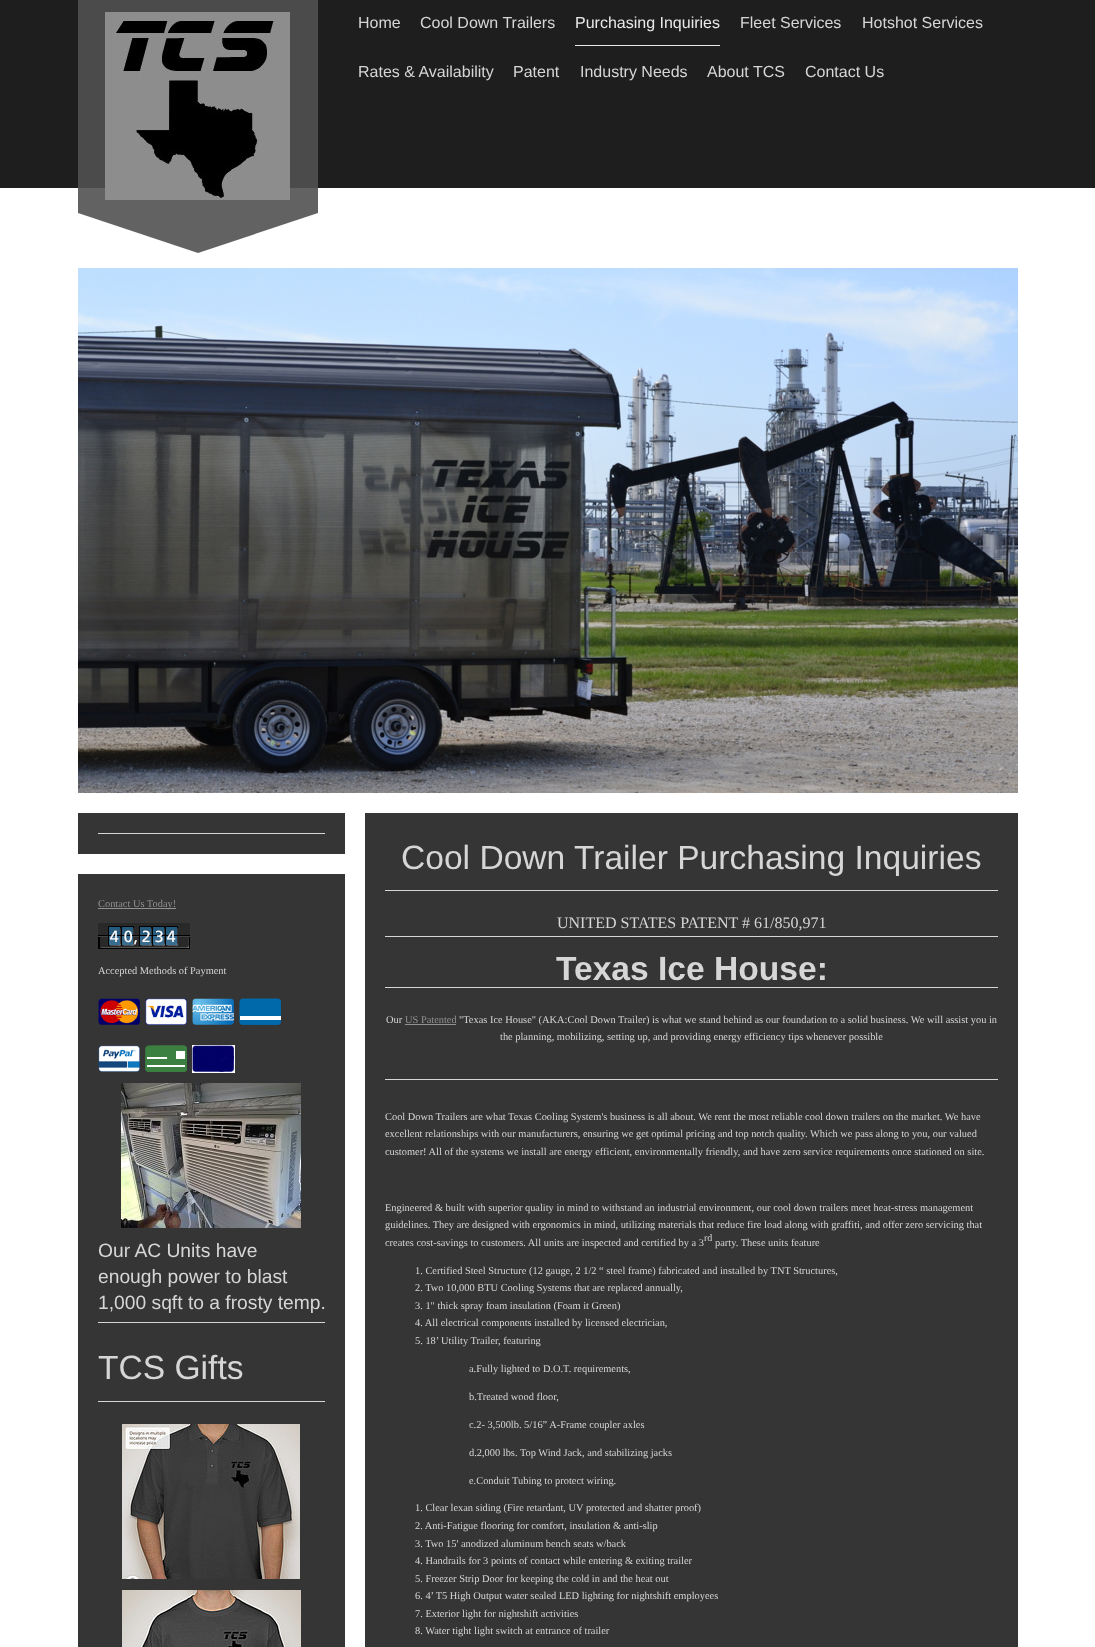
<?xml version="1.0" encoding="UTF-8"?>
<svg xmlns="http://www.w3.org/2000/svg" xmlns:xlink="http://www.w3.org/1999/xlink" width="1095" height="1647">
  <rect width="100%" height="100%" fill="#ffffff" />
  <rect x="78" y="188" width="240" height="25" fill="#626262" />
  <rect width="1095" height="188" fill="#1e1e1e" />
  <rect x="78" width="240" height="188" fill="#4b4b4b" />
  <image x="105" y="12" width="185" height="188" xlink:href="image1.png" />
  <path d="M 78 213 h 240 l -120 40 z" fill="#626262" />
  <rect x="575" y="45" width="145" height="1" fill="#e9e9e9" />
  <image x="78" y="268" width="940" height="525" xlink:href="image2.png" />
  <rect x="78" y="813" width="267" height="41" fill="#353535" />
  <rect x="98" y="833" width="227" height="1" fill="#d6d6d6" />
  <rect x="78" y="874" width="267" height="773" fill="#353535" />
  <rect x="98" y="908" width="78" height="1" fill="#919191" />
  <image x="98" y="923" width="10" height="26" xlink:href="image3.png" />
  <image x="108" y="923" width="13" height="26" xlink:href="image4.png" />
  <image x="121" y="923" width="13" height="26" xlink:href="image5.png" />
  <image x="134" y="923" width="5" height="26" xlink:href="image6.png" />
  <image x="139" y="923" width="13" height="26" xlink:href="image7.png" />
  <image x="152" y="923" width="13" height="26" xlink:href="image8.png" />
  <image x="165" y="923" width="13" height="26" xlink:href="image4.png" />
  <image x="178" y="923" width="12" height="26" xlink:href="image9.png" />
  <image x="98" y="998" width="42" height="27" xlink:href="image10.png" />
  <image x="145" y="998" width="42" height="27" xlink:href="image11.png" />
  <image x="192" y="998" width="42" height="27" xlink:href="image12.png" />
  <image x="239" y="998" width="42" height="27" xlink:href="image13.png" />
  <image x="98" y="1045" width="42" height="27" xlink:href="image14.png" />
  <image x="145" y="1045" width="42" height="27" xlink:href="image15.png" />
  <image x="192" y="1045" width="43" height="28" xlink:href="image16.png" />
  <image x="121" y="1083" width="180" height="145" xlink:href="image17.png" />
  <rect x="98" y="1322" width="227" height="1" fill="#d6d6d6" />
  <rect x="98" y="1401" width="227" height="1" fill="#d6d6d6" />
  <image x="122" y="1424" width="178" height="155" xlink:href="image18.png" />
  <image x="122" y="1590" width="179" height="57" xlink:href="image19.png" />
  <rect x="365" y="813" width="653" height="834" fill="#353535" />
  <rect x="385" y="890" width="613" height="1" fill="#d6d6d6" />
  <rect x="385" y="936" width="613" height="1" fill="#d6d6d6" />
  <rect x="385" y="987" width="613" height="1" fill="#d6d6d6" />
  <rect x="405" y="1024" width="51" height="1" fill="#919191" />
  <rect x="385" y="1079" width="613" height="1" fill="#d6d6d6" />
  <text x="358" y="28" style="font-family: Liberation Sans; font-size: 16px; fill: #d6d6d6">Home</text>
  <text x="420" y="28" style="font-family: Liberation Sans; font-size: 16px; fill: #d6d6d6">Cool Down Trailers</text>
  <text x="575" y="28" style="font-family: Liberation Sans; font-size: 16px; fill: #e9e9e9">Purchasing Inquiries</text>
  <text x="740" y="28" style="font-family: Liberation Sans; font-size: 16px; fill: #d6d6d6">Fleet Services</text>
  <text x="862" y="28" style="font-family: Liberation Sans; font-size: 16px; fill: #d6d6d6">Hotshot Services</text>
  <text x="358" y="77" style="font-family: Liberation Sans; font-size: 16px; fill: #d6d6d6">Rates &amp; Availability</text>
  <text x="513" y="77" style="font-family: Liberation Sans; font-size: 16px; fill: #d6d6d6">Patent</text>
  <text x="580" y="77" style="font-family: Liberation Sans; font-size: 16px; fill: #d6d6d6">Industry Needs</text>
  <text x="707" y="77" style="font-family: Liberation Sans; font-size: 16px; fill: #d6d6d6">About TCS</text>
  <text x="805" y="77" style="font-family: Liberation Sans; font-size: 16px; fill: #d6d6d6">Contact Us</text>
  <text x="98" y="907" style="font-family: Liberation Serif; font-size: 10.4px; fill: #919191">Contact Us Today!</text>
  <text x="98" y="974" style="font-family: Liberation Serif; font-size: 10.4px; fill: #d6d6d6">Accepted Methods of Payment</text>
  <text x="98" y="1257" style="font-family: Liberation Sans; font-size: 19.25px; fill: #d6d6d6">Our AC Units have</text>
  <text x="98" y="1283" style="font-family: Liberation Sans; font-size: 19.25px; fill: #d6d6d6">enough power to blast</text>
  <text x="98" y="1309" style="font-family: Liberation Sans; font-size: 19.25px; fill: #d6d6d6">1,000 sqft to a frosty temp.</text>
  <text x="98" y="1379" style="font-family: Liberation Sans; font-size: 33.6px; fill: #d6d6d6">TCS Gifts</text>
  <text x="401" y="869" style="font-family: Liberation Sans; font-size: 33.6px; fill: #d6d6d6">Cool Down Trailer Purchasing Inquiries</text>
  <text x="557" y="928" style="font-family: Liberation Serif; font-size: 16px; fill: #d6d6d6">UNITED STATES PATENT # 61/850,971</text>
  <text x="556" y="980" style="font-family: Liberation Sans; font-size: 33.6px; font-weight: bold; fill: #d6d6d6">Texas Ice House:</text>
  <text x="386" y="1023" style="font-family: Liberation Serif; font-size: 10.4px; fill: #d6d6d6">Our</text>
  <text x="405" y="1023" style="font-family: Liberation Serif; font-size: 10.4px; fill: #919191">US Patented</text>
  <text x="459" y="1023" style="font-family: Liberation Serif; font-size: 10.4px; fill: #d6d6d6">"Texas Ice House" (AKA:Cool Down Trailer) is what we stand behind as our foundation to a solid business. We will assist you in</text>
  <text x="500" y="1040" style="font-family: Liberation Serif; font-size: 10.4px; fill: #d6d6d6">the planning, mobilizing, setting up, and providing energy efficiency tips whenever possible</text>
  <text x="385" y="1120" style="font-family: Liberation Serif; font-size: 10.4px; fill: #d6d6d6">Cool Down Trailers are what Texas Cooling System's business is all about. We rent the most reliable cool down trailers on the market. We have</text>
  <text x="385" y="1137" style="font-family: Liberation Serif; font-size: 10.4px; fill: #d6d6d6">excellent relationships with our manufacturers, ensuring we get optimal pricing and top notch quality. Which we pass along to you, our valued</text>
  <text x="385" y="1155" style="font-family: Liberation Serif; font-size: 10.4px; fill: #d6d6d6">customer! All of the systems we install are energy efficient, environmentally friendly, and have zero service requirements once stationed on site.</text>
  <text x="385" y="1211" style="font-family: Liberation Serif; font-size: 10.4px; fill: #d6d6d6">Engineered &amp; built with superior quality in mind to withstand an industrial environment, our cool down trailers meet heat-stress management</text>
  <text x="385" y="1228" style="font-family: Liberation Serif; font-size: 10.4px; fill: #d6d6d6">guidelines. They are designed with ergonomics in mind, utilizing materials that reduce fire load along with graffiti, and offer zero servicing that</text>
  <text x="385" y="1246" style="font-family: Liberation Serif; font-size: 10.4px; fill: #d6d6d6">creates cost-savings to customers. All units are inspected and certified by a 3</text>
  <text x="704" y="1241" style="font-family: Liberation Serif; font-size: 10px; fill: #d6d6d6">rd</text>
  <text x="715" y="1246" style="font-family: Liberation Serif; font-size: 10.4px; fill: #d6d6d6">party. These units feature</text>
  <text x="415" y="1274" style="font-family: Liberation Serif; font-size: 10.4px; fill: #d6d6d6">1. Certified Steel Structure (12 gauge, 2 1/2 “ steel frame) fabricated and installed by TNT Structures,</text>
  <text x="415" y="1291" style="font-family: Liberation Serif; font-size: 10.4px; fill: #d6d6d6">2. Two 10,000 BTU Cooling Systems that are replaced annually,</text>
  <text x="415" y="1309" style="font-family: Liberation Serif; font-size: 10.4px; fill: #d6d6d6">3. 1" thick spray foam insulation (Foam it Green)</text>
  <text x="415" y="1326" style="font-family: Liberation Serif; font-size: 10.4px; fill: #d6d6d6">4. All electrical components installed by licensed electrician,</text>
  <text x="415" y="1344" style="font-family: Liberation Serif; font-size: 10.4px; fill: #d6d6d6">5. 18’ Utility Trailer, featuring</text>
  <text x="469" y="1372" style="font-family: Liberation Serif; font-size: 10.4px; fill: #d6d6d6">a.Fully lighted to D.O.T. requirements,</text>
  <text x="469" y="1400" style="font-family: Liberation Serif; font-size: 10.4px; fill: #d6d6d6">b.Treated wood floor,</text>
  <text x="469" y="1428" style="font-family: Liberation Serif; font-size: 10.4px; fill: #d6d6d6">c.2- 3,500lb. 5/16” A-Frame coupler axles</text>
  <text x="469" y="1456" style="font-family: Liberation Serif; font-size: 10.4px; fill: #d6d6d6">d.2,000 lbs. Top Wind Jack, and stabilizing jacks</text>
  <text x="469" y="1484" style="font-family: Liberation Serif; font-size: 10.4px; fill: #d6d6d6">e.Conduit Tubing to protect wiring.</text>
  <text x="415" y="1511" style="font-family: Liberation Serif; font-size: 10.4px; fill: #d6d6d6">1. Clear lexan siding (Fire retardant, UV protected and shatter proof)</text>
  <text x="415" y="1529" style="font-family: Liberation Serif; font-size: 10.4px; fill: #d6d6d6">2. Anti-Fatigue flooring for comfort, insulation &amp; anti-slip</text>
  <text x="415" y="1547" style="font-family: Liberation Serif; font-size: 10.4px; fill: #d6d6d6">3. Two 15' anodized aluminum bench seats w/back</text>
  <text x="415" y="1564" style="font-family: Liberation Serif; font-size: 10.4px; fill: #d6d6d6">4. Handrails for 3 points of contact while entering &amp; exiting trailer</text>
  <text x="415" y="1582" style="font-family: Liberation Serif; font-size: 10.4px; fill: #d6d6d6">5. Freezer Strip Door for keeping the cold in and the heat out</text>
  <text x="415" y="1599" style="font-family: Liberation Serif; font-size: 10.4px; fill: #d6d6d6">6. 4’ T5 High Output water sealed LED lighting for nightshift employees</text>
  <text x="415" y="1617" style="font-family: Liberation Serif; font-size: 10.4px; fill: #d6d6d6">7. Exterior light for nightshift activities</text>
  <text x="415" y="1634" style="font-family: Liberation Serif; font-size: 10.4px; fill: #d6d6d6">8. Water tight light switch at entrance of trailer</text>
</svg>
